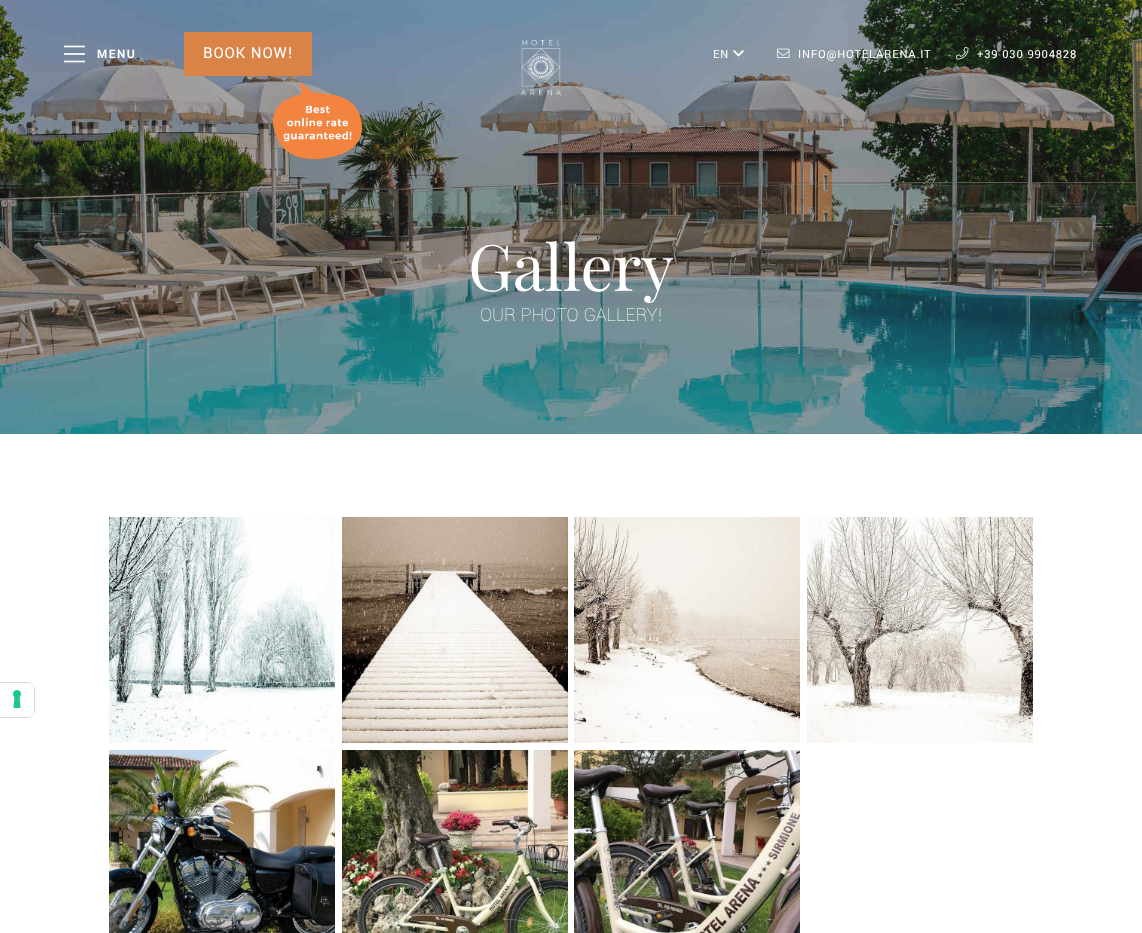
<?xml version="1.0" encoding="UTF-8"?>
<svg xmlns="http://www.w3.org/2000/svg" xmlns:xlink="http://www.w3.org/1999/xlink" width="1142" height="933">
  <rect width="100%" height="100%" fill="#ffffff" />
  <image x="0" y="0" width="1142" height="434" xlink:href="image1.png" />
  <image x="64" y="45" width="21" height="18" xlink:href="image2.png" />
  <rect x="184" y="32" width="128" height="44" fill="#d98346" />
  <image x="272" y="82" width="91" height="78" xlink:href="image3.png" />
  <image x="520" y="40" width="41" height="56" xlink:href="image4.png" />
  <image x="733" y="50" width="11" height="7" xlink:href="image5.png" />
  <image x="777" y="48" width="13" height="10" xlink:href="image6.png" />
  <image x="956" y="47" width="13" height="13" xlink:href="image7.png" />
  <path d="M -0.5 682.5 h 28.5 c 3.5 0 6.5 3 6.5 6.5 v 22 c 0 3.5 -3 6.5 -6.5 6.5 h -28.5 z" fill="none" stroke="#d9d9d9" />
  <path d="M 0 683 h 28 c 3.5 0 6 2.5 6 6 v 22 c 0 3.5 -2.5 6 -6 6 h -28 z" fill="#ffffff" />
  <image x="13" y="690" width="8" height="18" xlink:href="image8.png" />
  <image x="109" y="517" width="226" height="226" xlink:href="image9.png" />
  <image x="342" y="517" width="226" height="226" xlink:href="image10.png" />
  <image x="574" y="517" width="226" height="226" xlink:href="image11.png" />
  <image x="807" y="517" width="226" height="226" xlink:href="image12.png" />
  <image x="109" y="750" width="226" height="183" xlink:href="image13.png" />
  <image x="342" y="750" width="226" height="183" xlink:href="image14.png" />
  <image x="574" y="750" width="226" height="183" xlink:href="image15.png" />
  <text x="97" y="58" style="font-family: Yantramanav; font-size: 13px; font-weight: bold; letter-spacing: 1.5px; fill: #ffffff">MENU</text>
  <text x="203" y="58" style="font-family: Yantramanav; font-size: 16.75px; letter-spacing: 0.75px; fill: #ffffff">BOOK NOW!</text>
  <text x="713" y="58" style="font-family: Yantramanav; font-size: 12.5px; letter-spacing: 0.75px; fill: #ffffff">EN</text>
  <text x="798" y="58" style="font-family: Yantramanav; font-size: 12.5px; letter-spacing: 0.75px; fill: #ffffff">INFO@HOTELARENA.IT</text>
  <text x="977" y="58" style="font-family: Yantramanav; font-size: 12.5px; letter-spacing: 0.75px; fill: #ffffff">+39 030 9904828</text>
  <text x="468" y="291" style="font-family: Playfair Display; font-size: 64px; fill: #ffffff">Gallery</text>
  <text x="480" y="321" style="font-family: Yantramanav; font-size: 20px; font-weight: 100; fill: #ffffff">OUR PHOTO GALLERY!</text>
</svg>
